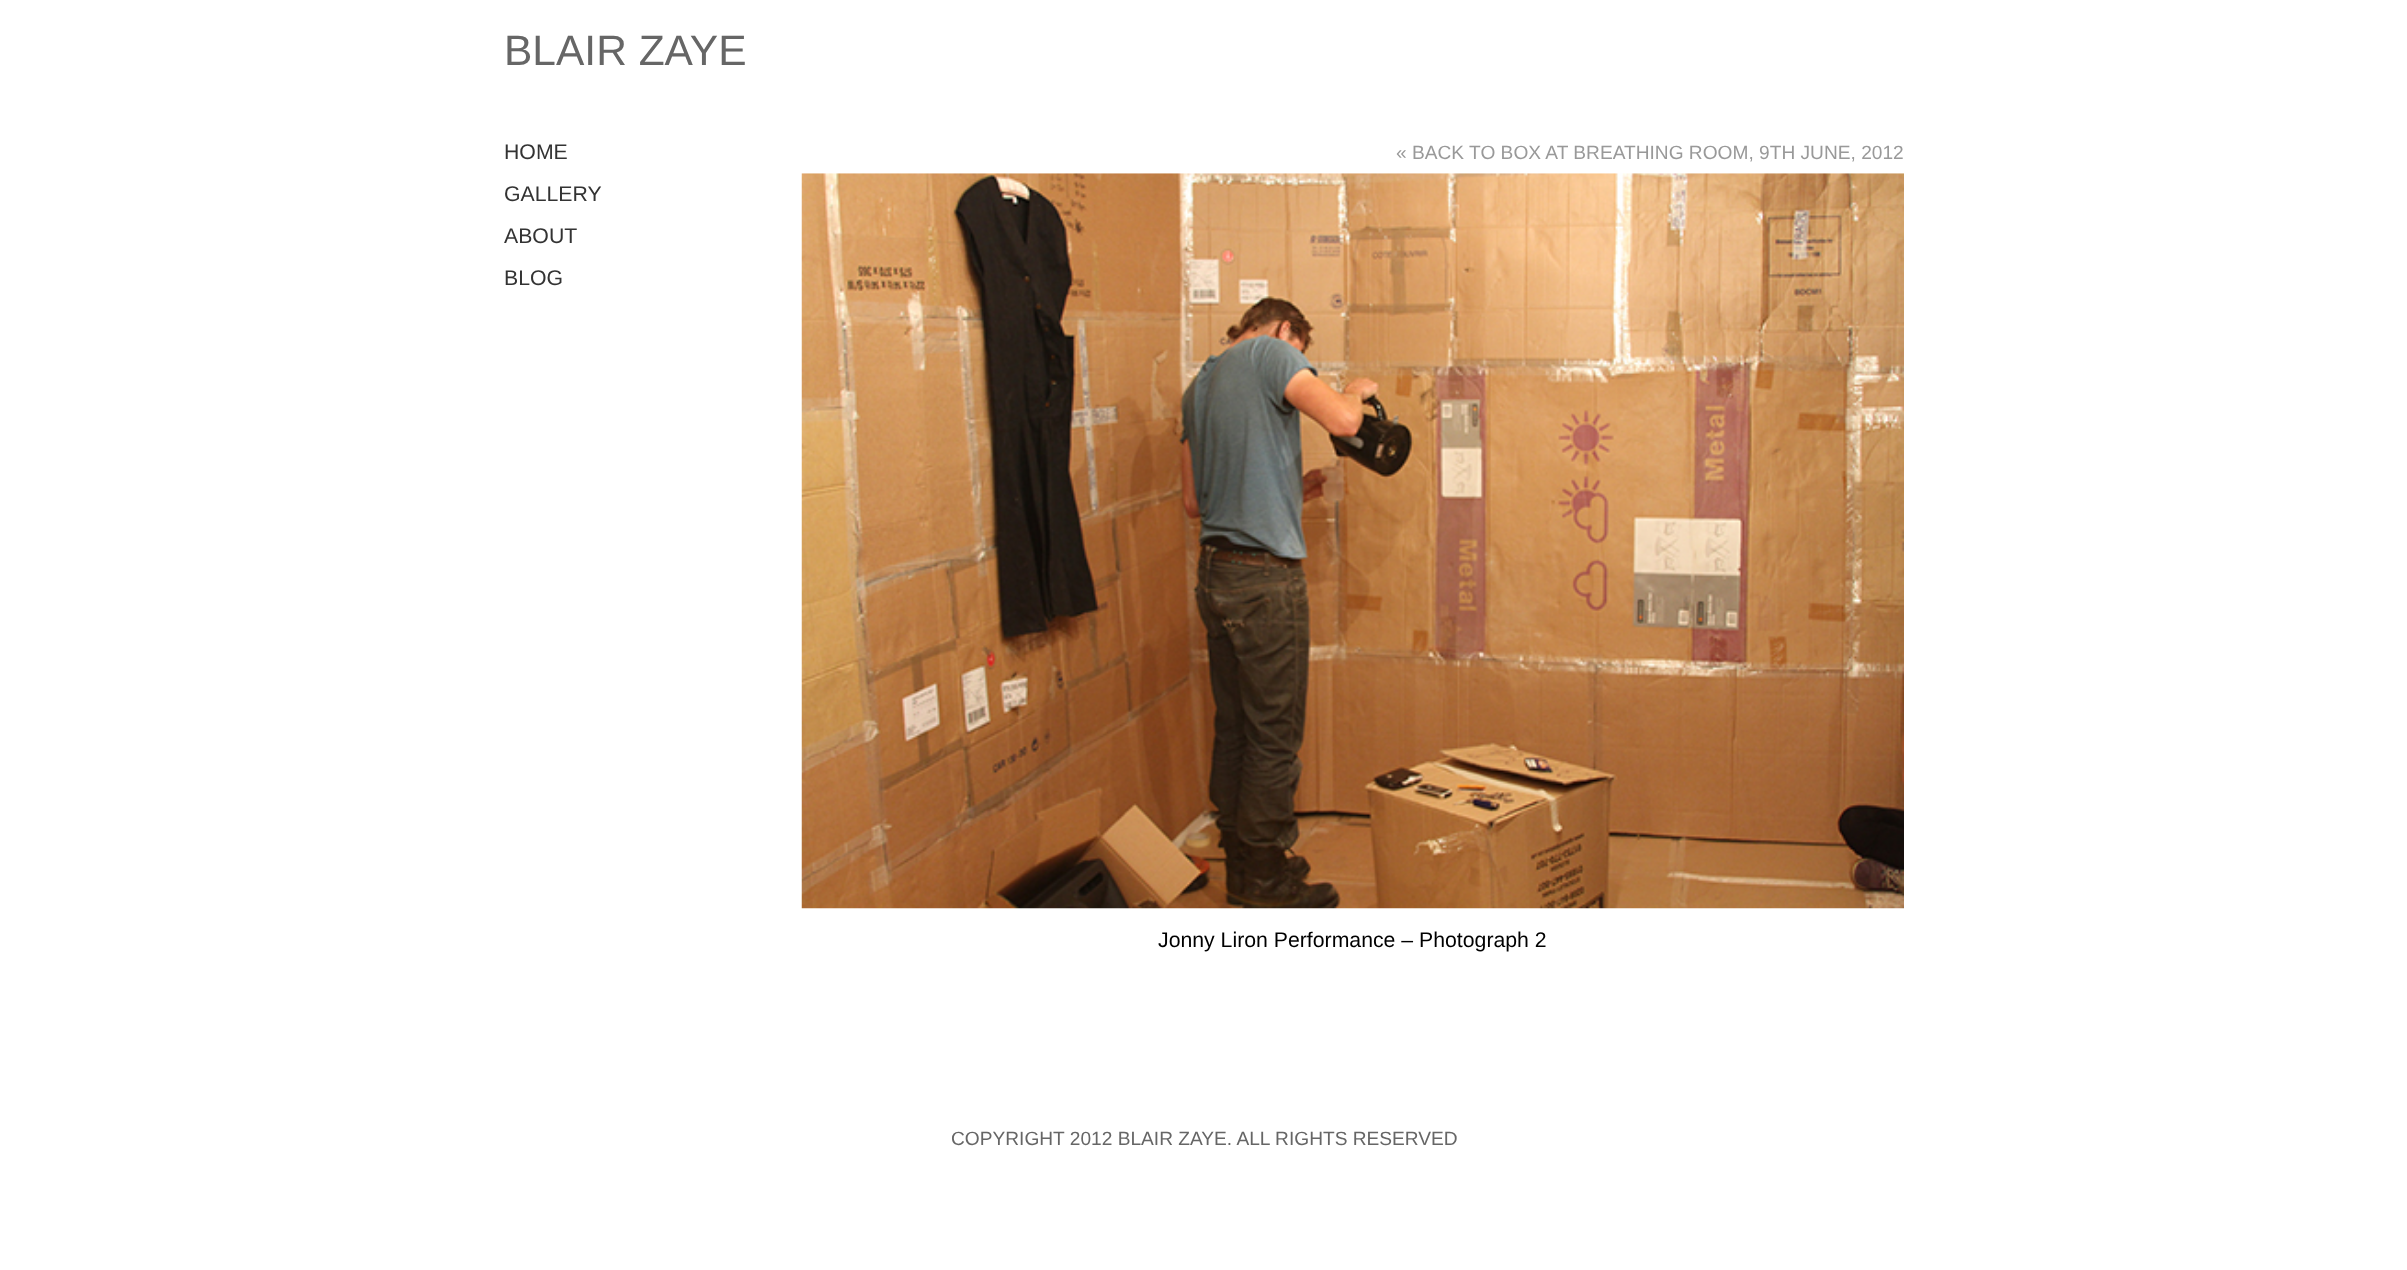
<?xml version="1.0" encoding="UTF-8"?>
<svg xmlns="http://www.w3.org/2000/svg" xmlns:xlink="http://www.w3.org/1999/xlink" width="2407" height="1270">
  <rect width="100%" height="100%" fill="#ffffff" />
  <image x="801" y="173" width="1103" height="736" xlink:href="image1.png" />
  <text x="504" y="65" style="font-family: Liberation Sans; font-size: 42.5px; fill: #666666">BLAIR ZAYE</text>
  <text x="504" y="159" style="font-family: Liberation Sans; font-size: 21.25px; fill: #333333">HOME</text>
  <text x="504" y="201" style="font-family: Liberation Sans; font-size: 21.25px; fill: #333333">GALLERY</text>
  <text x="504" y="243" style="font-family: Liberation Sans; font-size: 21.25px; fill: #333333">ABOUT</text>
  <text x="504" y="285" style="font-family: Liberation Sans; font-size: 21.25px; fill: #333333">BLOG</text>
  <text x="1396" y="159" style="font-family: Liberation Sans; font-size: 19.15px; fill: #999999">« BACK TO BOX AT BREATHING ROOM, 9TH JUNE, 2012</text>
  <text x="1158" y="947" style="font-family: Liberation Sans; font-size: 21.25px; fill: #000000">Jonny Liron Performance – Photograph 2</text>
  <text x="951" y="1145" style="font-family: Liberation Sans; font-size: 19.15px; fill: #666666">COPYRIGHT 2012 BLAIR ZAYE. ALL RIGHTS RESERVED</text>
</svg>
